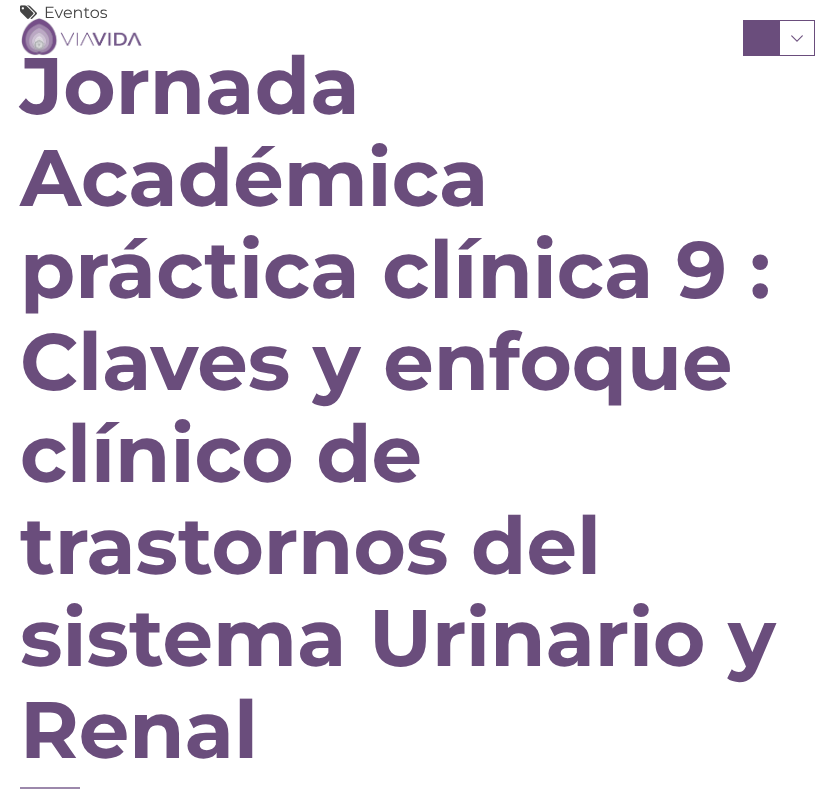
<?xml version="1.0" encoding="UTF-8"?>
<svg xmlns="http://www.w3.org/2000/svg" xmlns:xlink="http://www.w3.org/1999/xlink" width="835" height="797">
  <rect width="100%" height="100%" fill="#ffffff" />
  <image x="20" y="5" width="17" height="14" xlink:href="image1.png" />
  <rect x="20" y="787" width="60" height="2" fill="#9c88ab" />
  <rect x="743" y="20" width="36" height="36" fill="#6a4d7c" />
  <rect x="779.5" y="20.5" width="35" height="35" fill="none" stroke="#6a4d7c" />
  <image x="791" y="35" width="12" height="7" xlink:href="image3.png" />
  <text x="44" y="18" style="font-family: Montserrat; font-size: 16px; fill: #444444">Eventos</text>
  <text x="20" y="114" style="font-family: Montserrat; font-size: 80px; font-weight: bold; fill: #6a4d7c">Jornada</text>
  <text x="20" y="206" style="font-family: Montserrat; font-size: 80px; font-weight: bold; fill: #6a4d7c">Académica</text>
  <text x="20" y="298" style="font-family: Montserrat; font-size: 80px; font-weight: bold; fill: #6a4d7c">práctica clínica 9 :</text>
  <text x="20" y="390" style="font-family: Montserrat; font-size: 80px; font-weight: bold; fill: #6a4d7c">Claves y enfoque</text>
  <text x="20" y="482" style="font-family: Montserrat; font-size: 80px; font-weight: bold; fill: #6a4d7c">clínico de</text>
  <text x="20" y="574" style="font-family: Montserrat; font-size: 80px; font-weight: bold; fill: #6a4d7c">trastornos del</text>
  <text x="20" y="666" style="font-family: Montserrat; font-size: 80px; font-weight: bold; fill: #6a4d7c">sistema Urinario y</text>
  <text x="20" y="758" style="font-family: Montserrat; font-size: 80px; font-weight: bold; fill: #6a4d7c">Renal</text>
  <image x="21" y="18" width="121" height="38" xlink:href="image2.png" />
</svg>
